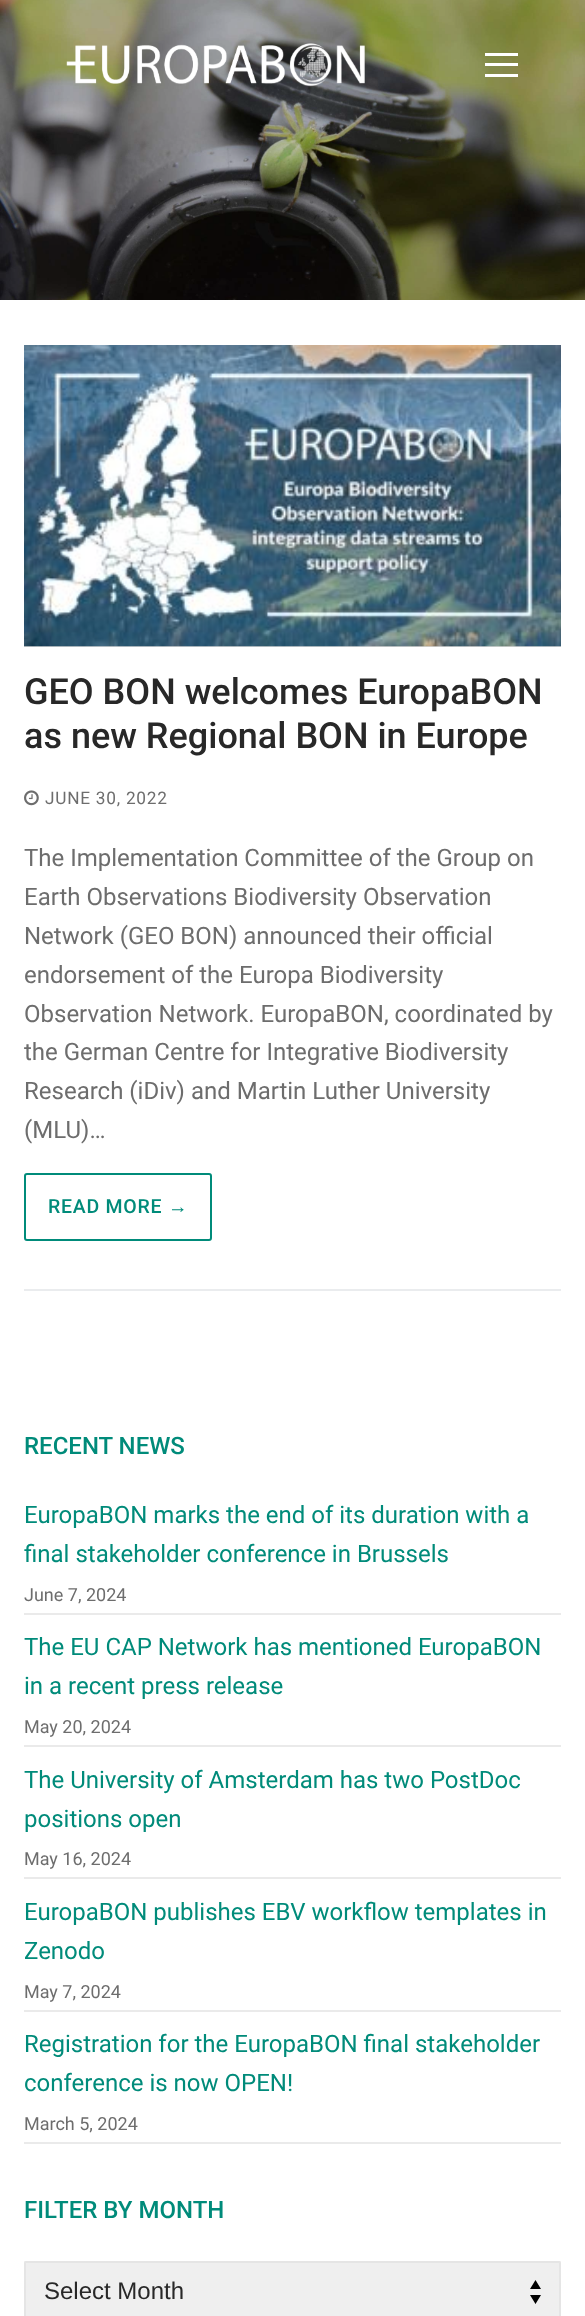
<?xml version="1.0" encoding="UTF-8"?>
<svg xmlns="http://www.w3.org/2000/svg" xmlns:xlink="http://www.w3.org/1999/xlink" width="585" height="2316">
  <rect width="100%" height="100%" fill="#ffffff" />
  <image x="0" y="0" width="585" height="300" xlink:href="image1.png" />
  <image x="66" y="43" width="299" height="44" xlink:href="image2.png" />
  <rect x="485" y="63" width="33" height="3" fill="#ffffff" />
  <rect x="485" y="53" width="33" height="3" fill="#ffffff" />
  <rect x="485" y="74" width="33" height="3" fill="#ffffff" />
  <rect x="24" y="1289" width="537" height="2" fill="#eaecee" />
  <rect x="24" y="646" width="537" height="1" fill="#d5d5d5" />
  <image x="24" y="345" width="537" height="302" xlink:href="image3.png" />
  <image x="24" y="790" width="15" height="16" xlink:href="image4.png" />
  <rect x="25" y="1174" width="186" height="66" rx="2" fill="none" stroke="#008b7a" stroke-width="2" />
  <rect x="24" y="1613" width="537" height="2" fill="#eaeaea" />
  <rect x="24" y="1745" width="537" height="2" fill="#eaeaea" />
  <rect x="24" y="1877" width="537" height="2" fill="#eaeaea" />
  <rect x="24" y="2010" width="537" height="2" fill="#eaeaea" />
  <rect x="24" y="2142" width="537" height="2" fill="#eaeaea" />
  <rect x="24" y="2261" width="537" height="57" rx="1.5" fill="#efefef" />
  <path d="M 535.5 2280 l -5.5 9 h 11 z m 0 24 l 5.5 -9 h -11 z" fill="#000000" />
  <rect x="25" y="2262" width="535" height="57" rx="0.5" fill="none" stroke="#e5e5e5" stroke-width="2" />
  <text x="24" y="704" style="font-family: Roboto; font-size: 36px; font-weight: 500; fill: #282828">GEO BON welcomes EuropaBON</text>
  <text x="24" y="748" style="font-family: Roboto; font-size: 36px; font-weight: 500; fill: #282828">as new Regional BON in Europe</text>
  <text x="45" y="804" style="font-family: Roboto; font-size: 17.25px; letter-spacing: 0.75px; fill: #6d6d6d">JUNE 30, 2022</text>
  <text x="24" y="866" style="font-family: Roboto; font-size: 24px; fill: #6d6d6d">The Implementation Committee of the Group on</text>
  <text x="24" y="905" style="font-family: Roboto; font-size: 24px; fill: #6d6d6d">Earth Observations Biodiversity Observation</text>
  <text x="24" y="944" style="font-family: Roboto; font-size: 24px; fill: #6d6d6d">Network (GEO BON) announced their official</text>
  <text x="24" y="983" style="font-family: Roboto; font-size: 24px; fill: #6d6d6d">endorsement of the Europa Biodiversity</text>
  <text x="24" y="1022" style="font-family: Roboto; font-size: 24px; fill: #6d6d6d">Observation Network. EuropaBON, coordinated by</text>
  <text x="24" y="1060" style="font-family: Roboto; font-size: 24px; fill: #6d6d6d">the German Centre for Integrative Biodiversity</text>
  <text x="24" y="1099" style="font-family: Roboto; font-size: 24px; fill: #6d6d6d">Research (iDiv) and Martin Luther University</text>
  <text x="24" y="1138" style="font-family: Roboto; font-size: 24px; fill: #6d6d6d">(MLU)…</text>
  <text x="48" y="1213" style="font-family: Roboto; font-size: 19.5px; font-weight: 500; letter-spacing: 0.75px; fill: #008b7a">READ MORE</text>
  <text x="168" y="1213" style="font-family: Liberation Sans; font-size: 19.5px; letter-spacing: 0.75px; fill: #008b7a">→</text>
  <text x="24" y="1454" style="font-family: Roboto; font-size: 24px; font-weight: 500; fill: #008b7a">RECENT NEWS</text>
  <text x="24" y="1523" style="font-family: Roboto; font-size: 24px; fill: #008b7a">EuropaBON marks the end of its duration with a</text>
  <text x="24" y="1562" style="font-family: Roboto; font-size: 24px; fill: #008b7a">final stakeholder conference in Brussels</text>
  <text x="24" y="1601" style="font-family: Roboto; font-size: 18px; fill: #6d6d6d">June 7, 2024</text>
  <text x="24" y="1655" style="font-family: Roboto; font-size: 24px; fill: #008b7a">The EU CAP Network has mentioned EuropaBON</text>
  <text x="24" y="1694" style="font-family: Roboto; font-size: 24px; fill: #008b7a">in a recent press release</text>
  <text x="24" y="1733" style="font-family: Roboto; font-size: 18px; fill: #6d6d6d">May 20, 2024</text>
  <text x="24" y="1788" style="font-family: Roboto; font-size: 24px; fill: #008b7a">The University of Amsterdam has two PostDoc</text>
  <text x="24" y="1827" style="font-family: Roboto; font-size: 24px; fill: #008b7a">positions open</text>
  <text x="24" y="1865" style="font-family: Roboto; font-size: 18px; fill: #6d6d6d">May 16, 2024</text>
  <text x="24" y="1920" style="font-family: Roboto; font-size: 24px; fill: #008b7a">EuropaBON publishes EBV workflow templates in</text>
  <text x="24" y="1959" style="font-family: Roboto; font-size: 24px; fill: #008b7a">Zenodo</text>
  <text x="24" y="1998" style="font-family: Roboto; font-size: 18px; fill: #6d6d6d">May 7, 2024</text>
  <text x="24" y="2052" style="font-family: Roboto; font-size: 24px; fill: #008b7a">Registration for the EuropaBON final stakeholder</text>
  <text x="24" y="2091" style="font-family: Roboto; font-size: 24px; fill: #008b7a">conference is now OPEN!</text>
  <text x="24" y="2130" style="font-family: Roboto; font-size: 18px; fill: #6d6d6d">March 5, 2024</text>
  <text x="24" y="2218" style="font-family: Roboto; font-size: 24px; font-weight: 500; fill: #008b7a">FILTER BY MONTH</text>
  <text x="44" y="2299" style="font-family: Liberation Sans; font-size: 24px; fill: #282828">Select Month</text>
</svg>
